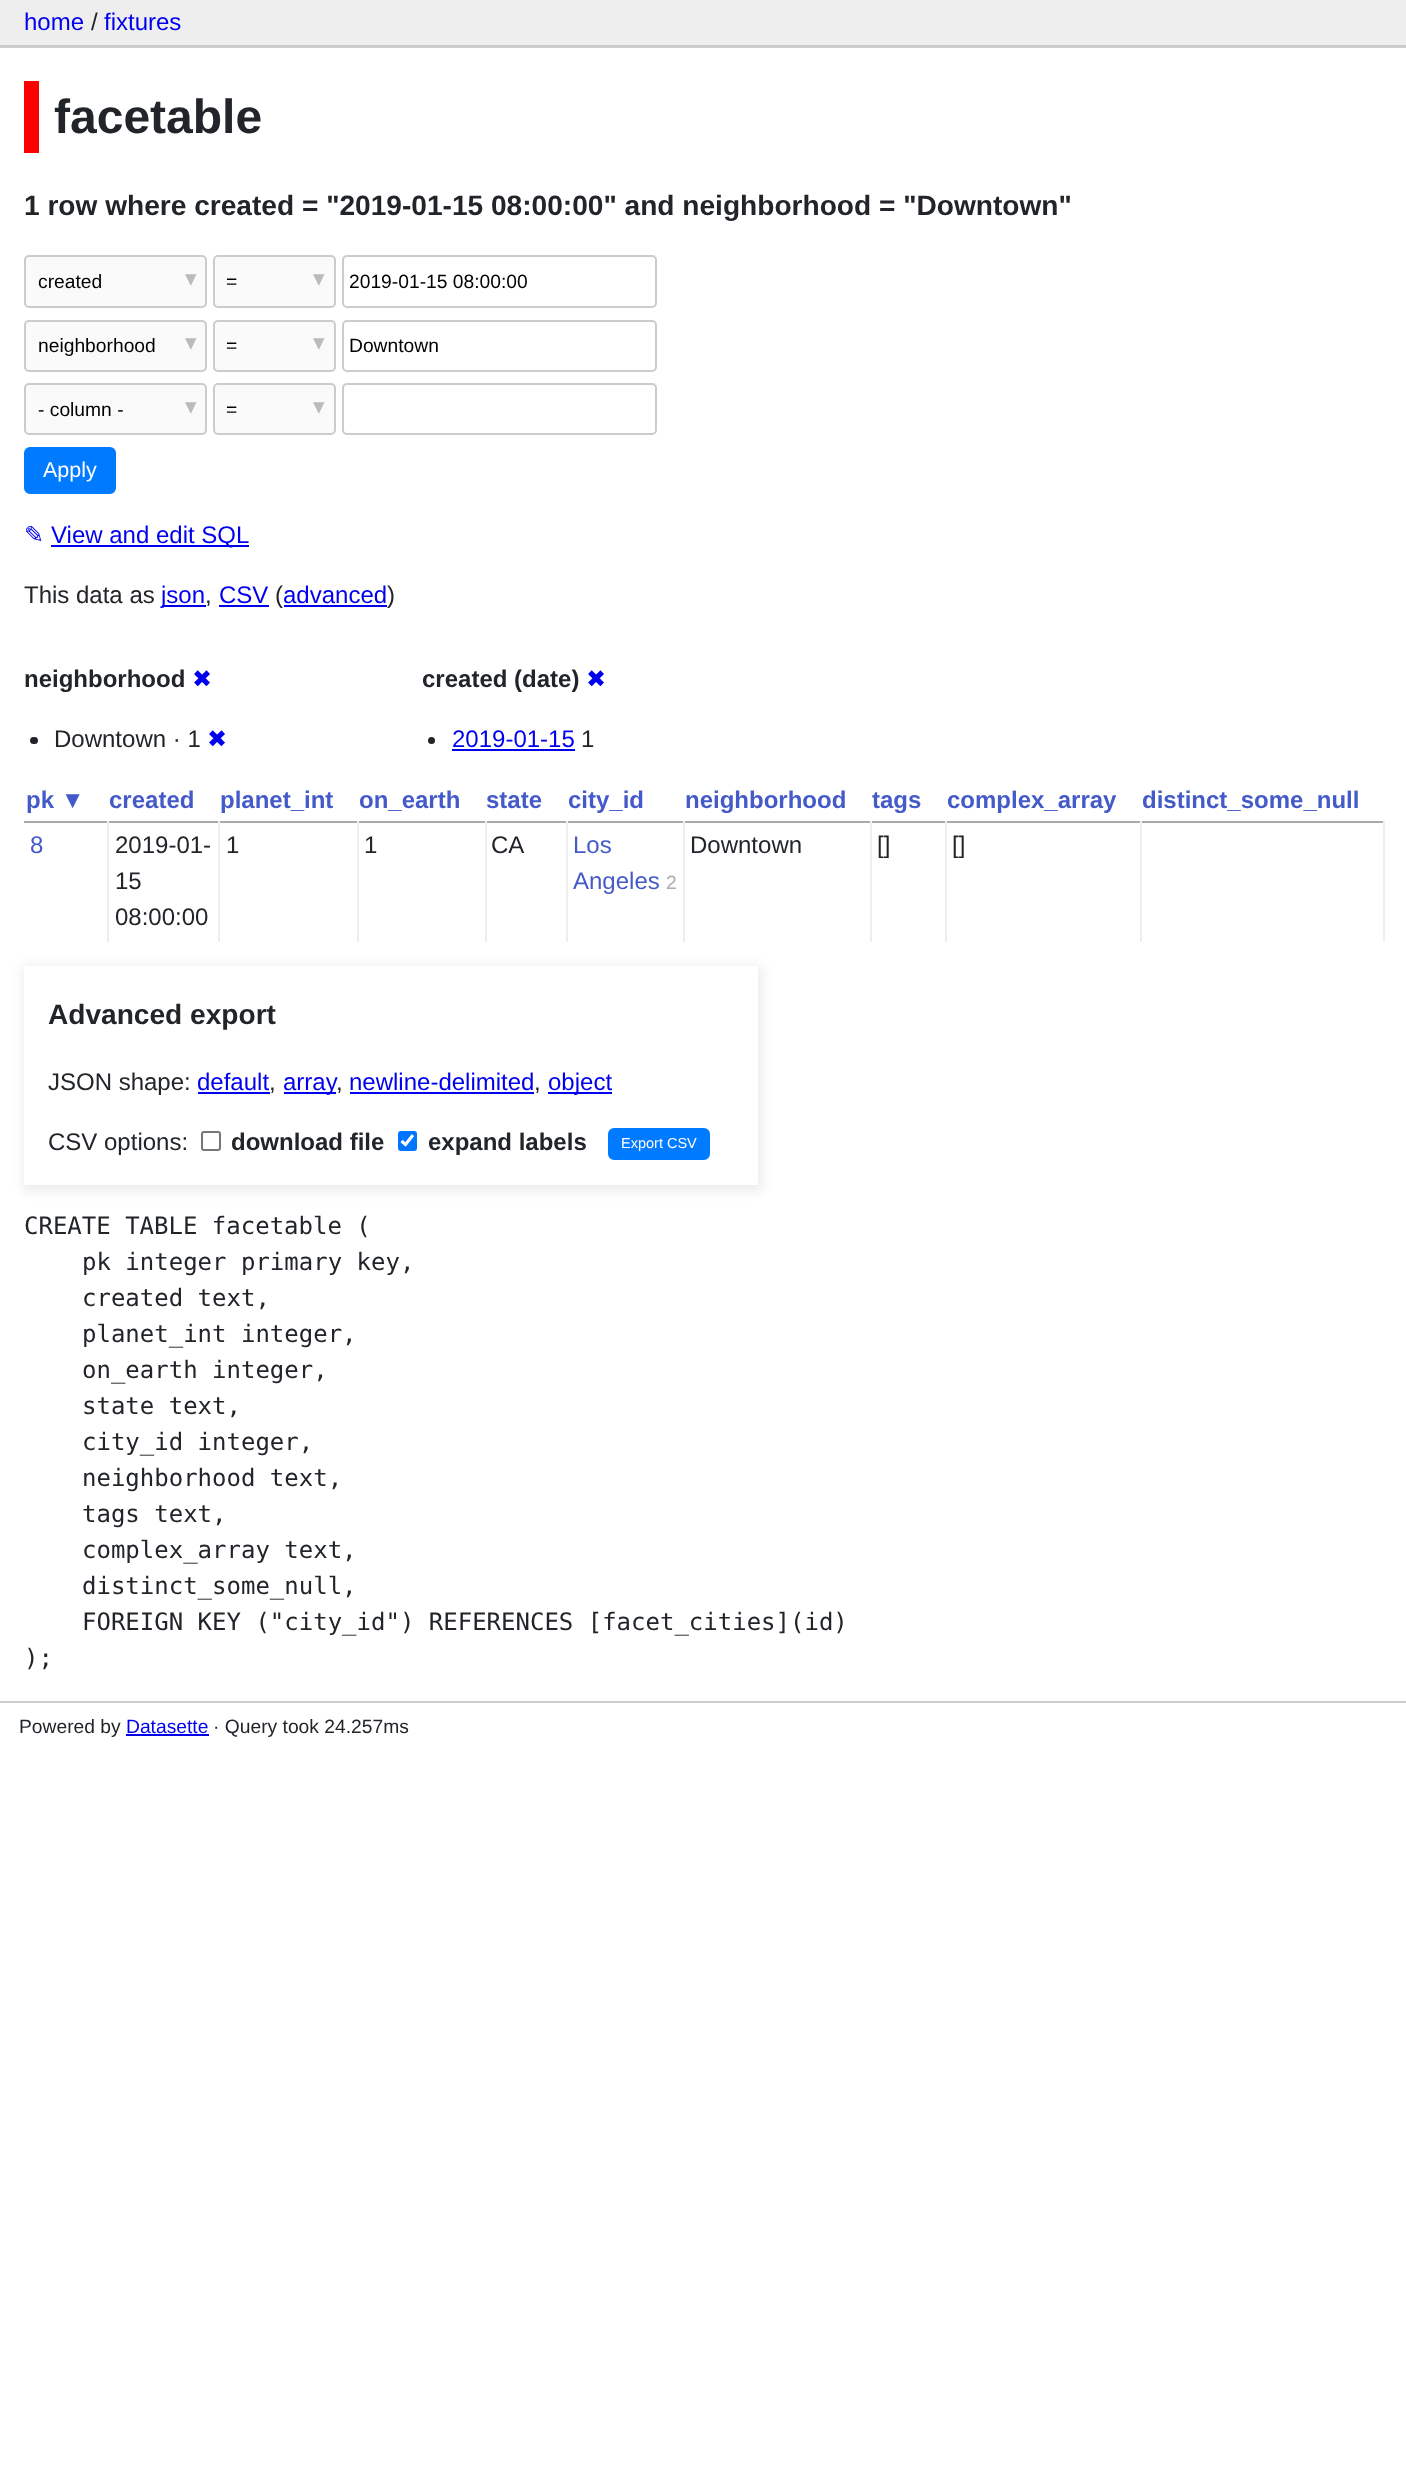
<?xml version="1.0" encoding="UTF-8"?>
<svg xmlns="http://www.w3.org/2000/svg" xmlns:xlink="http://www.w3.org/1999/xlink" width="1406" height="2485">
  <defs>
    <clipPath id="clip1"><path d="M 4 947 h 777 v 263 h -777 z m 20 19 h 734 v 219 h -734 z" clip-rule="evenodd" /></clipPath>
  </defs>
  <rect width="100%" height="100%" fill="#ffffff" />
  <rect width="1406" height="45" fill="#eeeeee" />
  <rect y="45" width="1406" height="3" fill="#cccccc" />
  <rect x="24" y="81" width="15" height="72" fill="#ff0000" />
  <rect x="25" y="256" width="181" height="51" rx="4" fill="#fafafa" stroke="#cccccc" stroke-width="2" />
  <rect x="214" y="256" width="121" height="51" rx="4" fill="#fafafa" stroke="#cccccc" stroke-width="2" />
  <rect x="343" y="256" width="313" height="51" rx="4" fill="none" stroke="#cccccc" stroke-width="2" />
  <rect x="25" y="321" width="181" height="50" rx="4" fill="#fafafa" stroke="#cccccc" stroke-width="2" />
  <rect x="214" y="321" width="121" height="50" rx="4" fill="#fafafa" stroke="#cccccc" stroke-width="2" />
  <rect x="343" y="321" width="313" height="50" rx="4" fill="none" stroke="#cccccc" stroke-width="2" />
  <rect x="25" y="384" width="181" height="50" rx="4" fill="#fafafa" stroke="#cccccc" stroke-width="2" />
  <rect x="214" y="384" width="121" height="50" rx="4" fill="#fafafa" stroke="#cccccc" stroke-width="2" />
  <rect x="343" y="384" width="313" height="50" rx="4" fill="none" stroke="#cccccc" stroke-width="2" />
  <rect x="25" y="448" width="90" height="45" rx="5" fill="#007bff" stroke="#007bff" stroke-width="2" />
  <rect x="51" y="545" width="198" height="2" fill="#0000ee" />
  <rect x="162" y="605" width="44" height="2" fill="#0000ee" />
  <rect x="219" y="605" width="50" height="2" fill="#0000ee" />
  <rect x="284" y="605" width="103" height="2" fill="#0000ee" />
  <rect x="30" y="737" width="8" height="7" rx="3.5" fill="#212529" />
  <circle cx="431.5" cy="740.5" r="3.5" fill="#212529" />
  <rect x="452" y="749" width="123" height="2" fill="#0000ee" />
  <rect x="24" y="821" width="1361" height="2" fill="#aaaaaa" />
  <rect x="1383" y="821" width="2" height="121" fill="#eeeeee" />
  <rect x="107" y="821" width="2" height="121" fill="#eeeeee" />
  <rect x="218" y="821" width="2" height="121" fill="#eeeeee" />
  <rect x="357" y="821" width="2" height="121" fill="#eeeeee" />
  <rect x="485" y="821" width="2" height="121" fill="#eeeeee" />
  <rect x="566" y="821" width="2" height="121" fill="#eeeeee" />
  <rect x="683" y="821" width="2" height="121" fill="#eeeeee" />
  <rect x="870" y="821" width="2" height="121" fill="#eeeeee" />
  <rect x="945" y="821" width="2" height="121" fill="#eeeeee" />
  <rect x="1140" y="821" width="2" height="121" fill="#eeeeee" />
  <g clip-path="url(#clip1)">
    <rect x="23" y="966" width="739" height="225" fill="#000000" fill-opacity="0.08" filter="blur(6px)" />
  </g>
  <rect x="198" y="1092" width="72" height="2" fill="#0000ee" />
  <rect x="284" y="1092" width="52" height="2" fill="#0000ee" />
  <rect x="350" y="1092" width="184" height="2" fill="#0000ee" />
  <rect x="548" y="1092" width="64" height="2" fill="#0000ee" />
  <rect x="202" y="1132" width="18" height="18" rx="2" fill="none" stroke="#767676" stroke-width="2" />
  <rect x="398" y="1131" width="19" height="20" rx="3" fill="#0075ff" />
  <path d="M 401.5 1141 l 4 3.5 l 7.5 -9.5" fill="none" stroke="#ffffff" stroke-width="3.1" />
  <rect x="609" y="1129" width="100" height="30" rx="5" fill="#007bff" stroke="#007bff" stroke-width="2" />
  <rect y="1701" width="1406" height="2" fill="#cccccc" />
  <rect x="126" y="1734" width="83" height="2" fill="#0000ee" />
  <text x="24" y="30" style="font-family: Liberation Sans; font-size: 24px; fill: #0000ee">home</text>
  <text x="91" y="30" style="font-family: Liberation Sans; font-size: 24px; fill: #212529">/</text>
  <text x="104" y="30" style="font-family: Liberation Sans; font-size: 24px; fill: #0000ee">fixtures</text>
  <text x="54" y="133" style="font-family: Liberation Sans; font-size: 48px; font-weight: bold; fill: #212529">facetable</text>
  <text x="24" y="215" style="font-family: Liberation Sans; font-size: 28.1px; font-weight: bold; fill: #212529">1 row where created = "2019-01-15 08:00:00" and neighborhood = "Downtown"</text>
  <text x="38" y="288" style="font-family: Liberation Sans; font-size: 19.25px; fill: #000000">created</text>
  <text x="185" y="286" style="font-family: DejaVu Sans; font-size: 23px; fill: #bbbbbb">▾</text>
  <text x="226" y="288" style="font-family: Liberation Sans; font-size: 19.25px; fill: #000000">=</text>
  <text x="313" y="286" style="font-family: DejaVu Sans; font-size: 23px; fill: #bbbbbb">▾</text>
  <text x="349" y="288" style="font-family: Liberation Sans; font-size: 19.25px; fill: #000000">2019-01-15 08:00:00</text>
  <text x="38" y="352" style="font-family: Liberation Sans; font-size: 19.25px; fill: #000000">neighborhood</text>
  <text x="185" y="350" style="font-family: DejaVu Sans; font-size: 23px; fill: #bbbbbb">▾</text>
  <text x="226" y="352" style="font-family: Liberation Sans; font-size: 19.25px; fill: #000000">=</text>
  <text x="313" y="350" style="font-family: DejaVu Sans; font-size: 23px; fill: #bbbbbb">▾</text>
  <text x="349" y="352" style="font-family: Liberation Sans; font-size: 19.25px; fill: #000000">Downtown</text>
  <text x="38" y="416" style="font-family: Liberation Sans; font-size: 19.25px; fill: #000000">- column -</text>
  <text x="185" y="414" style="font-family: DejaVu Sans; font-size: 23px; fill: #bbbbbb">▾</text>
  <text x="226" y="416" style="font-family: Liberation Sans; font-size: 19.25px; fill: #000000">=</text>
  <text x="313" y="414" style="font-family: DejaVu Sans; font-size: 23px; fill: #bbbbbb">▾</text>
  <text x="43" y="477" style="font-family: Liberation Sans; font-size: 21.5px; fill: #ffffff">Apply</text>
  <text x="24" y="543" style="font-family: DejaVu Sans; font-size: 24px; fill: #0000ee">✎</text>
  <text x="51" y="543" style="font-family: Liberation Sans; font-size: 24px; fill: #0000ee">View and edit SQL</text>
  <text x="24" y="603" style="font-family: Liberation Sans; font-size: 24px; fill: #212529">This data as</text>
  <text x="161" y="603" style="font-family: Liberation Sans; font-size: 24px; fill: #0000ee">json</text>
  <text x="205" y="603" style="font-family: Liberation Sans; font-size: 24px; fill: #212529">,</text>
  <text x="219" y="603" style="font-family: Liberation Sans; font-size: 24px; fill: #0000ee">CSV</text>
  <text x="275" y="603" style="font-family: Liberation Sans; font-size: 24px; fill: #212529">(</text>
  <text x="283" y="603" style="font-family: Liberation Sans; font-size: 24px; fill: #0000ee">advanced</text>
  <text x="387" y="603" style="font-family: Liberation Sans; font-size: 24px; fill: #212529">)</text>
  <text x="24" y="687" style="font-family: Liberation Sans; font-size: 24px; font-weight: bold; fill: #212529">neighborhood</text>
  <text x="192" y="687" style="font-family: DejaVu Sans; font-size: 24px; fill: #0000ee">✖</text>
  <text x="54" y="747" style="font-family: Liberation Sans; font-size: 24px; fill: #212529">Downtown · 1</text>
  <text x="207" y="747" style="font-family: DejaVu Sans; font-size: 24px; fill: #0000ee">✖</text>
  <text x="422" y="687" style="font-family: Liberation Sans; font-size: 24px; font-weight: bold; fill: #212529">created (date)</text>
  <text x="586" y="687" style="font-family: DejaVu Sans; font-size: 24px; fill: #0000ee">✖</text>
  <text x="452" y="747" style="font-family: Liberation Sans; font-size: 24px; fill: #0000ee">2019-01-15</text>
  <text x="581" y="747" style="font-family: Liberation Sans; font-size: 24px; fill: #212529">1</text>
  <text x="26" y="808" style="font-family: Liberation Sans; font-size: 24px; font-weight: bold; fill: #445ac8">pk ▼</text>
  <text x="109" y="808" style="font-family: Liberation Sans; font-size: 24px; font-weight: bold; fill: #445ac8">created</text>
  <text x="220" y="808" style="font-family: Liberation Sans; font-size: 24px; font-weight: bold; fill: #445ac8">planet_int</text>
  <text x="359" y="808" style="font-family: Liberation Sans; font-size: 24px; font-weight: bold; fill: #445ac8">on_earth</text>
  <text x="486" y="808" style="font-family: Liberation Sans; font-size: 24px; font-weight: bold; fill: #445ac8">state</text>
  <text x="568" y="808" style="font-family: Liberation Sans; font-size: 24px; font-weight: bold; fill: #445ac8">city_id</text>
  <text x="685" y="808" style="font-family: Liberation Sans; font-size: 24px; font-weight: bold; fill: #445ac8">neighborhood</text>
  <text x="872" y="808" style="font-family: Liberation Sans; font-size: 24px; font-weight: bold; fill: #445ac8">tags</text>
  <text x="947" y="808" style="font-family: Liberation Sans; font-size: 24px; font-weight: bold; fill: #445ac8">complex_array</text>
  <text x="1142" y="808" style="font-family: Liberation Sans; font-size: 24px; font-weight: bold; fill: #445ac8">distinct_some_null</text>
  <text x="30" y="853" style="font-family: Liberation Sans; font-size: 24px; fill: #445ac8">8</text>
  <text x="115" y="853" style="font-family: Liberation Sans; font-size: 24px; fill: #212529">2019-01-</text>
  <text x="115" y="889" style="font-family: Liberation Sans; font-size: 24px; fill: #212529">15</text>
  <text x="115" y="925" style="font-family: Liberation Sans; font-size: 24px; fill: #212529">08:00:00</text>
  <text x="226" y="853" style="font-family: Liberation Sans; font-size: 24px; fill: #212529">1</text>
  <text x="364" y="853" style="font-family: Liberation Sans; font-size: 24px; fill: #212529">1</text>
  <text x="491" y="853" style="font-family: Liberation Sans; font-size: 24px; fill: #212529">CA</text>
  <text x="573" y="853" style="font-family: Liberation Sans; font-size: 24px; fill: #445ac8">Los</text>
  <text x="573" y="889" style="font-family: Liberation Sans; font-size: 24px; fill: #445ac8">Angeles</text>
  <text x="666" y="889" style="font-family: Liberation Sans; font-size: 19.25px; fill: #aaaaaa">2</text>
  <text x="690" y="853" style="font-family: Liberation Sans; font-size: 24px; fill: #212529">Downtown</text>
  <text x="877" y="853" style="font-family: Liberation Sans; font-size: 24px; fill: #212529">[]</text>
  <text x="952" y="853" style="font-family: Liberation Sans; font-size: 24px; fill: #212529">[]</text>
  <text x="48" y="1024" style="font-family: Liberation Sans; font-size: 28.1px; font-weight: bold; fill: #212529">Advanced export</text>
  <text x="48" y="1090" style="font-family: Liberation Sans; font-size: 24px; fill: #212529">JSON shape:</text>
  <text x="197" y="1090" style="font-family: Liberation Sans; font-size: 24px; fill: #0000ee">default</text>
  <text x="269" y="1090" style="font-family: Liberation Sans; font-size: 24px; fill: #212529">,</text>
  <text x="283" y="1090" style="font-family: Liberation Sans; font-size: 24px; fill: #0000ee">array</text>
  <text x="336" y="1090" style="font-family: Liberation Sans; font-size: 24px; fill: #212529">,</text>
  <text x="349" y="1090" style="font-family: Liberation Sans; font-size: 24px; fill: #0000ee">newline-delimited</text>
  <text x="534" y="1090" style="font-family: Liberation Sans; font-size: 24px; fill: #212529">,</text>
  <text x="548" y="1090" style="font-family: Liberation Sans; font-size: 24px; fill: #0000ee">object</text>
  <text x="48" y="1150" style="font-family: Liberation Sans; font-size: 24px; fill: #212529">CSV options:</text>
  <text x="231" y="1150" style="font-family: Liberation Sans; font-size: 24px; font-weight: bold; fill: #212529">download file</text>
  <text x="428" y="1150" style="font-family: Liberation Sans; font-size: 24px; font-weight: bold; fill: #212529">expand labels</text>
  <text x="621" y="1148" style="font-family: Liberation Sans; font-size: 14.5px; fill: #ffffff">Export CSV</text>
  <text x="24" y="1234" style="font-family: DejaVu Sans Mono; font-size: 24px; fill: #212529">CREATE TABLE facetable (</text>
  <text x="82" y="1270" style="font-family: DejaVu Sans Mono; font-size: 24px; fill: #212529">pk integer primary key,</text>
  <text x="82" y="1306" style="font-family: DejaVu Sans Mono; font-size: 24px; fill: #212529">created text,</text>
  <text x="82" y="1342" style="font-family: DejaVu Sans Mono; font-size: 24px; fill: #212529">planet_int integer,</text>
  <text x="82" y="1378" style="font-family: DejaVu Sans Mono; font-size: 24px; fill: #212529">on_earth integer,</text>
  <text x="82" y="1414" style="font-family: DejaVu Sans Mono; font-size: 24px; fill: #212529">state text,</text>
  <text x="82" y="1450" style="font-family: DejaVu Sans Mono; font-size: 24px; fill: #212529">city_id integer,</text>
  <text x="82" y="1486" style="font-family: DejaVu Sans Mono; font-size: 24px; fill: #212529">neighborhood text,</text>
  <text x="82" y="1522" style="font-family: DejaVu Sans Mono; font-size: 24px; fill: #212529">tags text,</text>
  <text x="82" y="1558" style="font-family: DejaVu Sans Mono; font-size: 24px; fill: #212529">complex_array text,</text>
  <text x="82" y="1594" style="font-family: DejaVu Sans Mono; font-size: 24px; fill: #212529">distinct_some_null,</text>
  <text x="82" y="1630" style="font-family: DejaVu Sans Mono; font-size: 24px; fill: #212529">FOREIGN KEY ("city_id") REFERENCES [facet_cities](id)</text>
  <text x="24" y="1666" style="font-family: DejaVu Sans Mono; font-size: 24px; fill: #212529">);</text>
  <text x="19" y="1733" style="font-family: Liberation Sans; font-size: 19.25px; fill: #212529">Powered by</text>
  <text x="126" y="1733" style="font-family: Liberation Sans; font-size: 19.25px; fill: #0000ee">Datasette</text>
  <text x="213" y="1733" style="font-family: Liberation Sans; font-size: 19.25px; fill: #212529">· Query took 24.257ms</text>
</svg>
